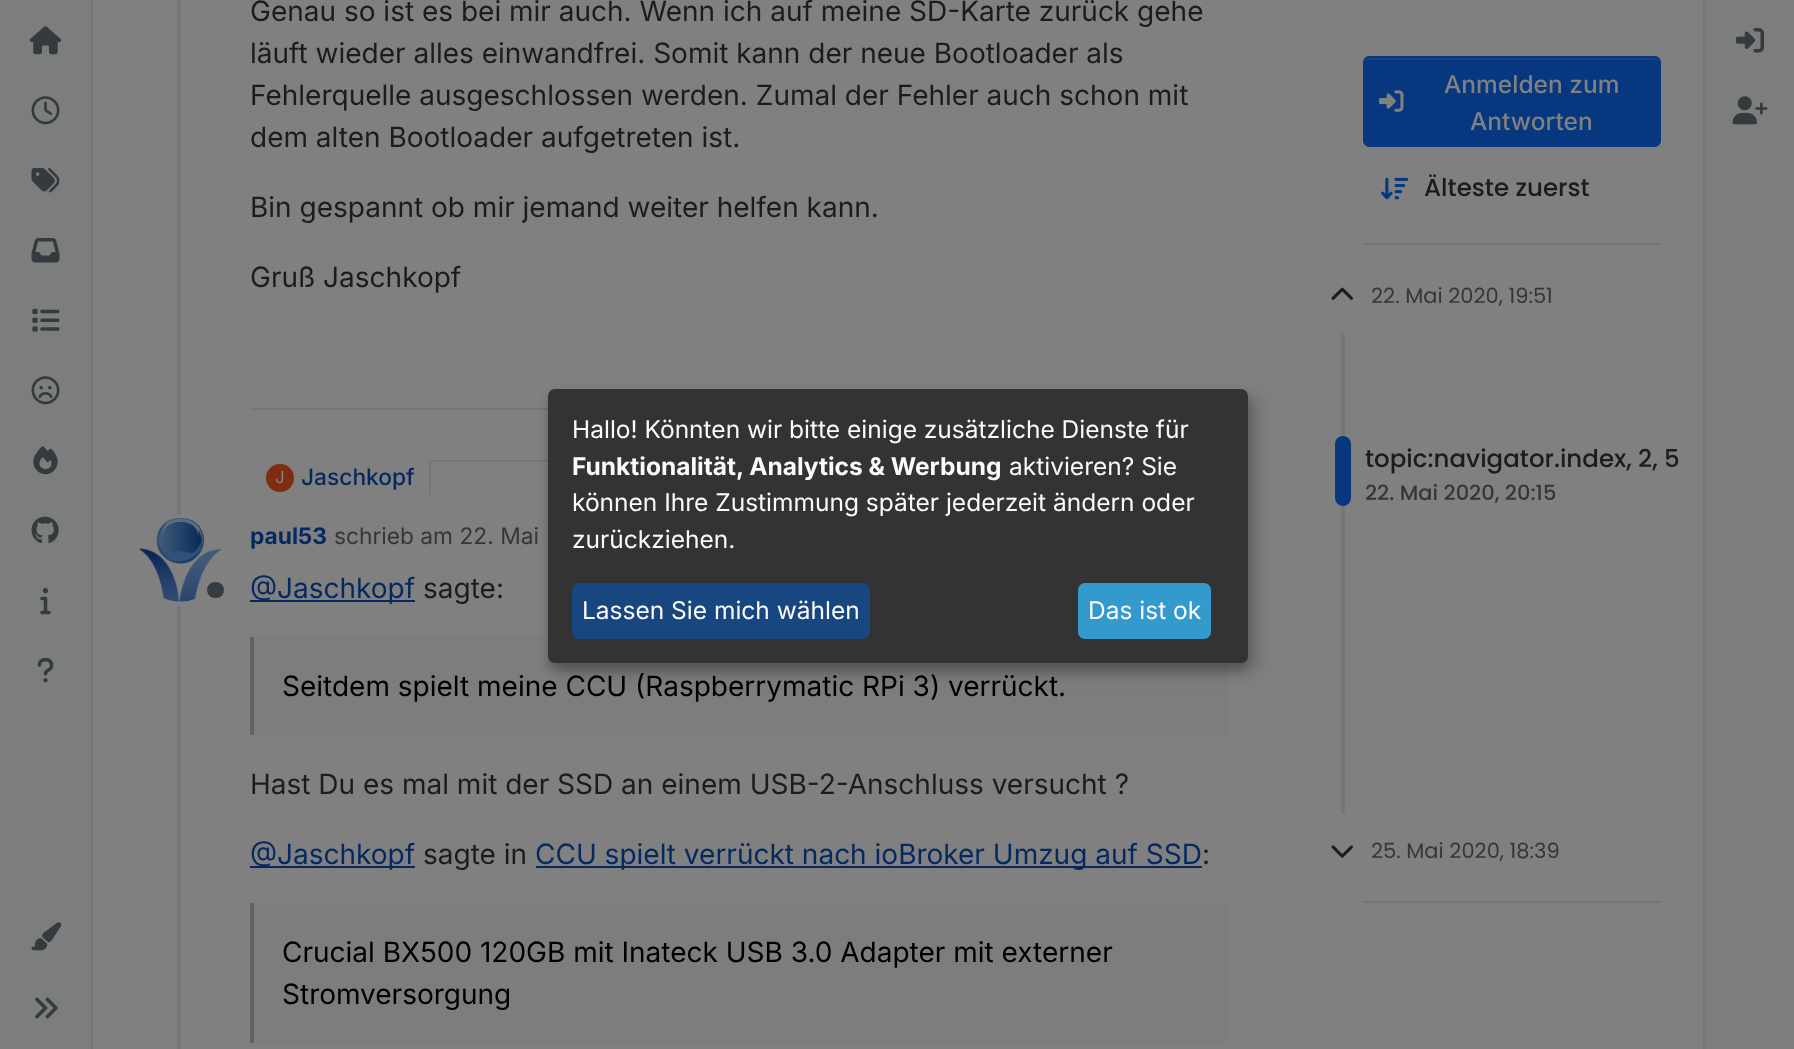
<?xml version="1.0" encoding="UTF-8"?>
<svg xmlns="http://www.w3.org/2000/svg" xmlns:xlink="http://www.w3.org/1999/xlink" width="1794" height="1049">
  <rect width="100%" height="100%" fill="#808080" />
  <rect width="91" height="1049" fill="#7c7d7d" />
  <rect x="91" width="2" height="1049" fill="#757678" />
  <image x="29" y="26" width="33" height="29" xlink:href="image1.png" />
  <image x="31" y="96" width="29" height="29" xlink:href="image2.png" />
  <image x="31" y="168" width="29" height="25" xlink:href="image3.png" />
  <image x="31" y="238" width="29" height="25" xlink:href="image4.png" />
  <image x="32" y="308" width="28" height="24" xlink:href="image5.png" />
  <image x="31" y="376" width="29" height="29" xlink:href="image6.png" />
  <image x="33" y="446" width="25" height="29" xlink:href="image7.png" />
  <image x="31" y="516" width="28" height="28" xlink:href="image8.png" />
  <image x="40" y="588" width="11" height="27" xlink:href="image9.png" />
  <image x="37" y="658" width="17" height="25" xlink:href="image10.png" />
  <image x="31" y="922" width="31" height="29" xlink:href="image11.png" />
  <image x="35" y="997" width="23" height="22" xlink:href="image12.png" />
  <rect x="177" width="4" height="1049" fill="#757678" />
  <rect x="250" y="408" width="298" height="2" fill="#757678" />
  <circle cx="280" cy="478" r="14" fill="#802c11" />
  <rect x="429" y="460" width="119" height="2" fill="#757678" />
  <rect x="429" y="460" width="2" height="35" fill="#757678" />
  <circle cx="180.5" cy="560.5" r="43.5" fill="#808080" stroke="#808080" stroke-width="4" />
  <image x="139" y="517" width="82" height="85" xlink:href="image13.png" />
  <rect x="205" y="580" width="21" height="20" rx="10" fill="#363b3f" stroke="#808080" stroke-width="4" />
  <rect x="250" y="600" width="165" height="2" fill="#05295f" />
  <rect x="254" y="637" width="975" height="98" fill="#7c7d7d" />
  <rect x="250" y="637" width="4" height="98" fill="#616263" />
  <rect x="250" y="866" width="165" height="2" fill="#05295f" />
  <rect x="536" y="866" width="666" height="2" fill="#05295f" />
  <rect x="254" y="903" width="975" height="140" fill="#7c7d7d" />
  <rect x="250" y="903" width="4" height="140" fill="#616263" />
  <rect x="1363" y="56" width="298" height="91" rx="7" fill="#07377f" />
  <path d="M 1370 60 h 284 c 3 0 5 2 5 5 c 0 -3 -1 -7 -5 -7 h -285 c -4 1 -4 4 -4 7 c 0 -3 2 -5 5 -5 z" fill="#19427f" />
  <rect x="1364" y="57" width="296" height="89" rx="6" fill="none" stroke="#07377f" stroke-width="2" />
  <image x="1379" y="90" width="25" height="22" xlink:href="image14.png" />
  <image x="1381" y="177" width="28" height="23" xlink:href="image15.png" />
  <rect x="1363" y="243" width="298" height="2" fill="#757678" />
  <image x="1331" y="287" width="22" height="13" xlink:href="image16.png" />
  <rect x="1341" y="333" width="4" height="481" fill="#757678" />
  <rect x="1335" y="436" width="16" height="70" rx="8" fill="#07377f" />
  <image x="1331" y="845" width="22" height="13" xlink:href="image17.png" />
  <rect x="1363" y="901" width="298" height="2" fill="#757678" />
  <rect x="1705" width="89" height="1049" fill="#7c7d7d" />
  <rect x="1703" width="2" height="1049" fill="#757678" />
  <image x="1736" y="28" width="28" height="25" xlink:href="image18.png" />
  <image x="1732" y="96" width="36" height="29" xlink:href="image19.png" />
  <rect x="557" y="397" width="700" height="275" rx="7" fill="#000000" fill-opacity="0.19" filter="blur(9px)" />
  <rect x="548" y="396" width="700" height="274" rx="7" fill="#000000" fill-opacity="0.2" filter="blur(5px)" />
  <rect x="548" y="389" width="700" height="274" rx="7" fill="#333333" />
  <rect x="572" y="583" width="298" height="56" rx="7" fill="#17477e" />
  <rect x="1078" y="583" width="133" height="56" rx="7" fill="#3499cc" />
  <text x="250" y="21" style="font-family: Inter; font-size: 28px; fill: #1a1d20">Genau so ist es bei mir auch. Wenn ich auf meine SD-Karte zurück gehe</text>
  <text x="250" y="63" style="font-family: Inter; font-size: 28px; fill: #1a1d20">läuft wieder alles einwandfrei. Somit kann der neue Bootloader als</text>
  <text x="250" y="105" style="font-family: Inter; font-size: 28px; fill: #1a1d20">Fehlerquelle ausgeschlossen werden. Zumal der Fehler auch schon mit</text>
  <text x="250" y="147" style="font-family: Inter; font-size: 28px; fill: #1a1d20">dem alten Bootloader aufgetreten ist.</text>
  <text x="250" y="217" style="font-family: Inter; font-size: 28px; fill: #1a1d20">Bin gespannt ob mir jemand weiter helfen kann.</text>
  <text x="250" y="287" style="font-family: Inter; font-size: 28px; fill: #1a1d20">Gruß Jaschkopf</text>
  <text x="275" y="483" style="font-family: Inter; font-size: 17px; fill: #808080">J</text>
  <text x="301" y="485" style="font-family: Inter; font-size: 22.75px; font-weight: 500; fill: #05295f">Jaschkopf</text>
  <text x="250" y="544" style="font-family: Inter; font-size: 22.75px; font-weight: bold; fill: #05295f">paul53</text>
  <text x="334" y="544" style="font-family: Inter; font-size: 22.75px; fill: #343638">schrieb am 22. Mai</text>
  <text x="250" y="598" style="font-family: Inter; font-size: 28px; fill: #05295f">@Jaschkopf</text>
  <text x="423" y="598" style="font-family: Inter; font-size: 28px; fill: #1a1d20">sagte:</text>
  <text x="282" y="696" style="font-family: Inter; font-size: 28px; fill: #000000">Seitdem spielt meine CCU (Raspberrymatic RPi 3) verrückt.</text>
  <text x="250" y="794" style="font-family: Inter; font-size: 28px; fill: #1a1d20">Hast Du es mal mit der SSD an einem USB-2-Anschluss versucht ?</text>
  <text x="250" y="864" style="font-family: Inter; font-size: 28px; fill: #05295f">@Jaschkopf</text>
  <text x="423" y="864" style="font-family: Inter; font-size: 28px; fill: #1a1d20">sagte in</text>
  <text x="535" y="864" style="font-family: Inter; font-size: 28px; fill: #05295f">CCU spielt verrückt nach ioBroker Umzug auf SSD</text>
  <text x="1202" y="864" style="font-family: Inter; font-size: 28px; fill: #1a1d20">:</text>
  <text x="282" y="962" style="font-family: Inter; font-size: 28px; fill: #000000">Crucial BX500 120GB mit Inateck USB 3.0 Adapter mit externer</text>
  <text x="282" y="1004" style="font-family: Inter; font-size: 28px; fill: #000000">Stromversorgung</text>
  <text x="1444" y="93" style="font-family: Inter; font-size: 24.5px; font-weight: 500; fill: #808080">Anmelden zum</text>
  <text x="1470" y="130" style="font-family: Inter; font-size: 24.5px; font-weight: 500; fill: #808080">Antworten</text>
  <text x="1424" y="196" style="font-family: Poppins; font-size: 24.5px; font-weight: 500; fill: #1a1d20">Älteste zuerst</text>
  <text x="1371" y="303" style="font-family: Poppins; font-size: 21px; fill: #343638">22. Mai 2020, 19:51</text>
  <text x="1365" y="467" style="font-family: Poppins; font-size: 24.5px; font-weight: 500; fill: #1a1d20">topic:navigator.index, 2, 5</text>
  <text x="1365" y="500" style="font-family: Poppins; font-size: 21px; font-weight: 500; fill: #343638">22. Mai 2020, 20:15</text>
  <text x="1371" y="858" style="font-family: Poppins; font-size: 21px; fill: #343638">25. Mai 2020, 18:39</text>
  <text x="572" y="438" style="font-family: Inter; font-size: 24.5px; fill: #fafafa">Hallo! Könnten wir bitte einige zusätzliche Dienste für</text>
  <text x="572" y="475" style="font-family: Inter; font-size: 24.5px; font-weight: bold; fill: #fafafa">Funktionalität, Analytics &amp; Werbung</text>
  <text x="1009" y="475" style="font-family: Inter; font-size: 24.5px; fill: #fafafa">aktivieren? Sie</text>
  <text x="572" y="511" style="font-family: Inter; font-size: 24.5px; fill: #fafafa">können Ihre Zustimmung später jederzeit ändern oder</text>
  <text x="572" y="548" style="font-family: Inter; font-size: 24.5px; fill: #fafafa">zurückziehen.</text>
  <text x="582" y="619" style="font-family: Inter; font-size: 24.5px; fill: #fafafa">Lassen Sie mich wählen</text>
  <text x="1088" y="619" style="font-family: Inter; font-size: 24.5px; fill: #fafafa">Das ist ok</text>
</svg>
